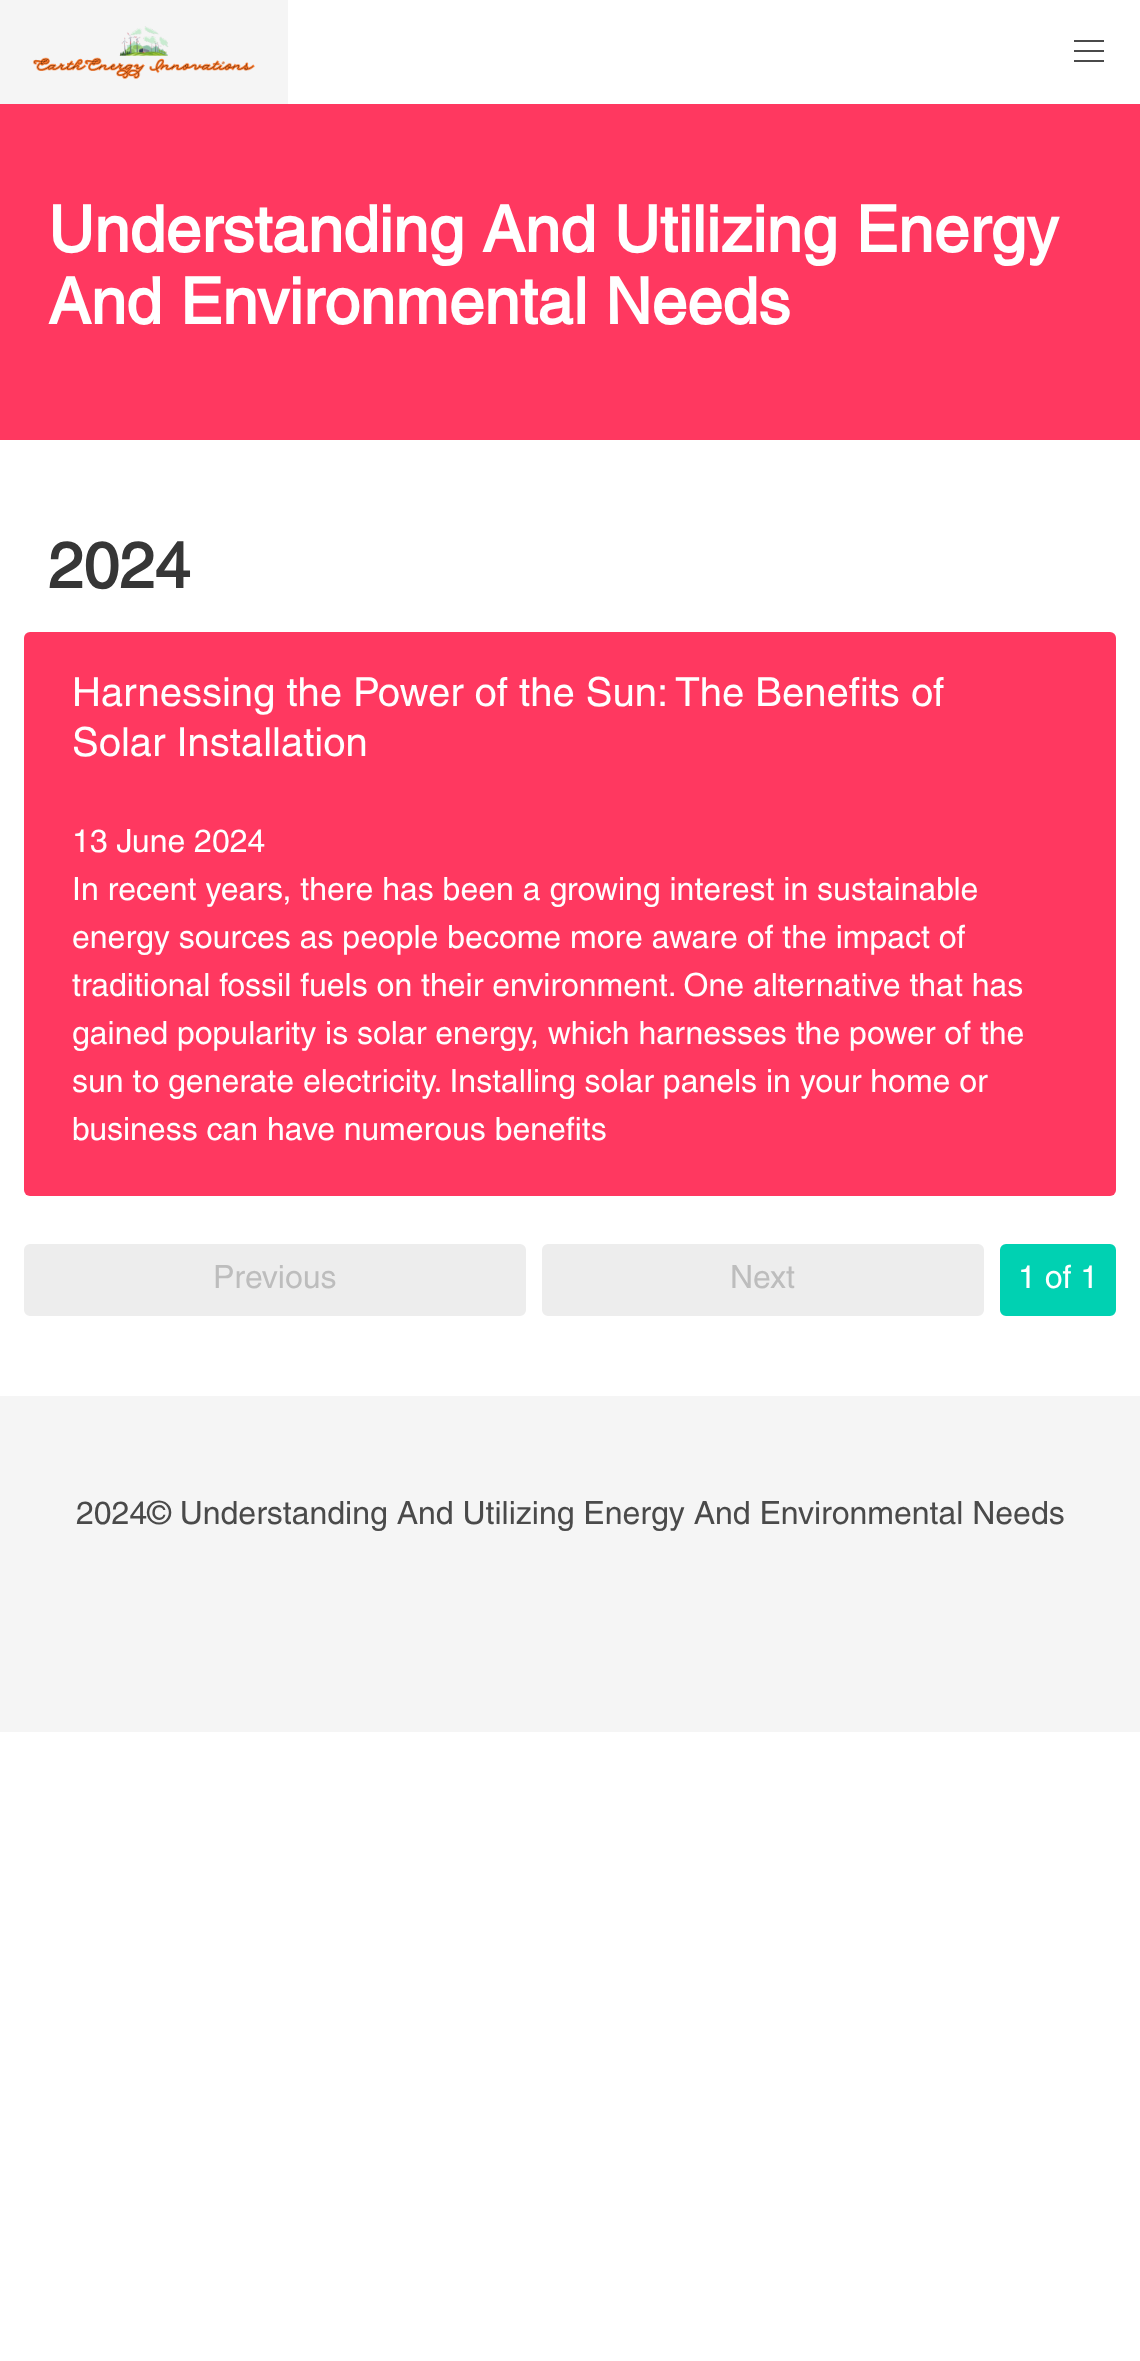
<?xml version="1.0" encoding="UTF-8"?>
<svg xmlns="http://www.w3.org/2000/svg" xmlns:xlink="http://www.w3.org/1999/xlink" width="1140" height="2361">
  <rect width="100%" height="100%" fill="#ffffff" />
  <rect width="288" height="104" fill="#f5f5f5" />
  <image x="33" y="26" width="222" height="53" xlink:href="image1.png" />
  <rect x="1074" y="40" width="30" height="2" fill="#4a4a4a" />
  <rect x="1074" y="50" width="30" height="2" fill="#4a4a4a" />
  <rect x="1074" y="60" width="30" height="2" fill="#4a4a4a" />
  <rect y="104" width="1140" height="336" fill="#ff3860" />
  <rect x="24" y="632" width="1092" height="564" rx="6" fill="#ff3860" />
  <rect x="25" y="1245" width="500" height="70" rx="5" fill="#ededed" stroke="#ededed" stroke-width="2" />
  <rect x="543" y="1245" width="440" height="70" rx="5" fill="#ededed" stroke="#ededed" stroke-width="2" />
  <rect x="1001" y="1245" width="114" height="70" rx="5" fill="#00d1b2" stroke="#00d1b2" stroke-width="2" />
  <rect y="1396" width="1140" height="336" fill="#f5f5f5" />
  <text x="48" y="252" style="font-family: Helvetica; font-size: 64px; font-weight: bold; fill: #ffffff">Understanding And Utilizing Energy</text>
  <text x="48" y="324" style="font-family: Helvetica; font-size: 64px; font-weight: bold; fill: #ffffff">And Environmental Needs</text>
  <text x="48" y="588" style="font-family: Helvetica; font-size: 64px; font-weight: bold; fill: #363636">2024</text>
  <text x="72" y="706" style="font-family: Helvetica; font-size: 40px; fill: #ffffff">Harnessing the Power of the Sun: The Benefits of</text>
  <text x="72" y="756" style="font-family: Helvetica; font-size: 40px; fill: #ffffff">Solar Installation</text>
  <text x="72" y="852" style="font-family: Helvetica; font-size: 32px; fill: #ffffff">13 June 2024</text>
  <text x="72" y="900" style="font-family: Helvetica; font-size: 32px; fill: #ffffff">In recent years, there has been a growing interest in sustainable</text>
  <text x="72" y="948" style="font-family: Helvetica; font-size: 32px; fill: #ffffff">energy sources as people become more aware of the impact of</text>
  <text x="72" y="996" style="font-family: Helvetica; font-size: 32px; fill: #ffffff">traditional fossil fuels on their environment. One alternative that has</text>
  <text x="72" y="1044" style="font-family: Helvetica; font-size: 32px; fill: #ffffff">gained popularity is solar energy, which harnesses the power of the</text>
  <text x="72" y="1092" style="font-family: Helvetica; font-size: 32px; fill: #ffffff">sun to generate electricity. Installing solar panels in your home or</text>
  <text x="72" y="1140" style="font-family: Helvetica; font-size: 32px; fill: #ffffff">business can have numerous benefits</text>
  <text x="213" y="1288" style="font-family: Helvetica; font-size: 32px; fill: #bdbdbd">Previous</text>
  <text x="730" y="1288" style="font-family: Helvetica; font-size: 32px; fill: #bdbdbd">Next</text>
  <text x="1018" y="1288" style="font-family: Helvetica; font-size: 32px; fill: #ffffff">1 of 1</text>
  <text x="76" y="1524" style="font-family: Helvetica; font-size: 32px; fill: #4a4a4a">2024© Understanding And Utilizing Energy And Environmental Needs</text>
</svg>
